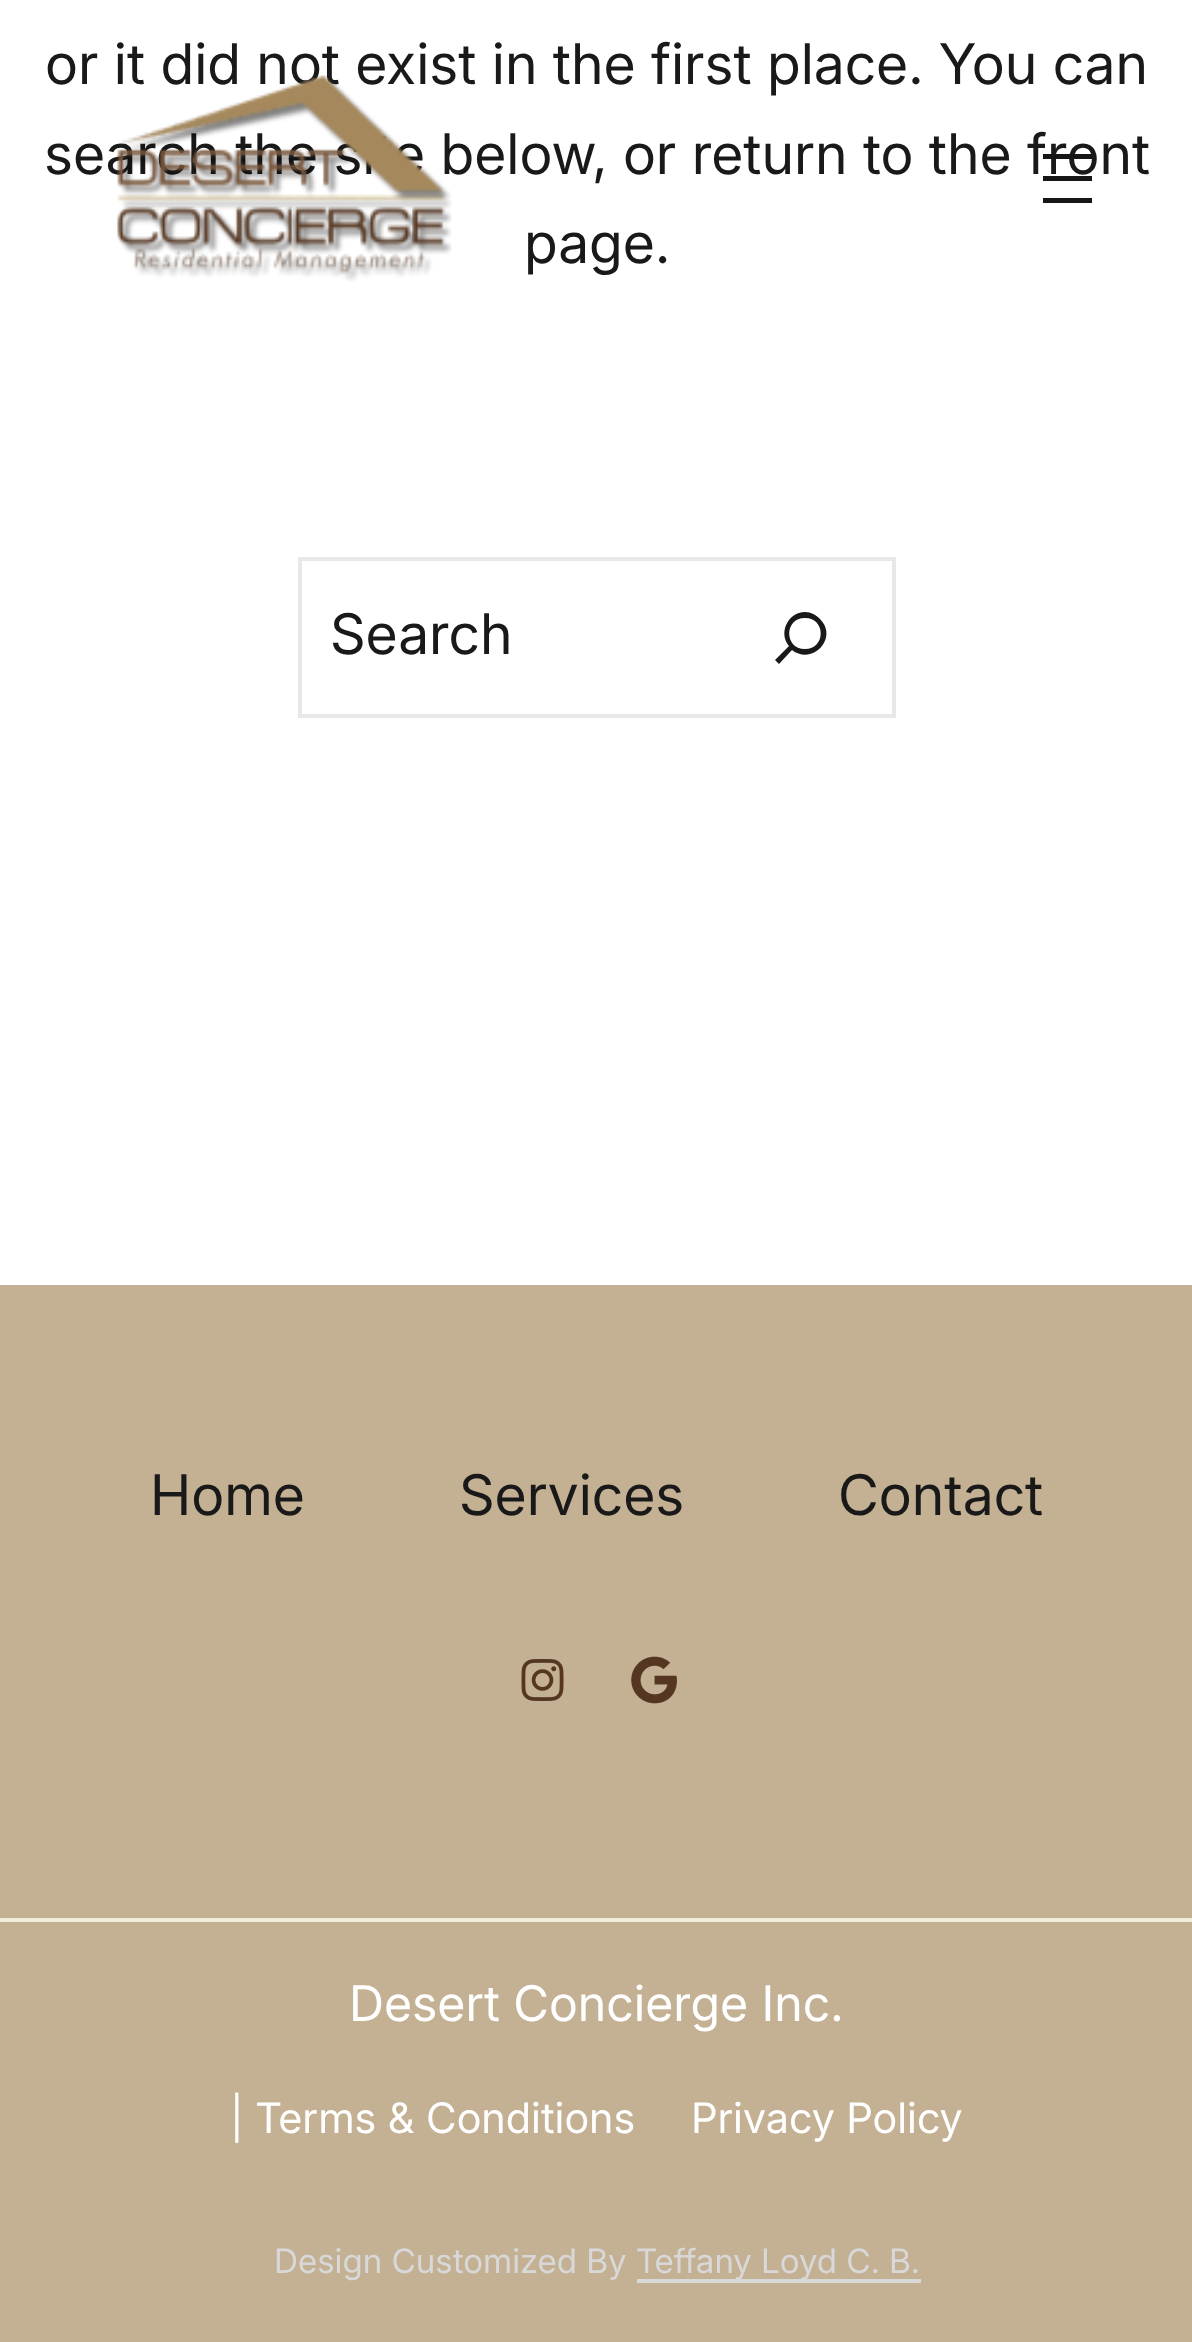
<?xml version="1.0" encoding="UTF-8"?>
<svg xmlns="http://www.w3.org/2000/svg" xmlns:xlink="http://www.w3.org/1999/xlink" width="1192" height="2342">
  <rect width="100%" height="100%" fill="#ffffff" />
  <rect x="300" y="559" width="594" height="157" fill="none" stroke="#e8e8e8" stroke-width="4" />
  <path d="M 805 612 c -17 0 -27 21 -16 34 l -14 14 l 4 4 l 13 -14 c 20 16 47 -12 28 -31 c -4 -4 -9 -7 -15 -7 z m 0 37 c -21 0 -21 -31 0 -31 c 21 0 21 31 0 31 z" fill="#191919" />
  <rect x="1043" y="198" width="49" height="5" fill="#161616" />
  <rect y="1285" width="1192" height="633" fill="#c4b093" />
  <image x="521" y="1659" width="43" height="42" xlink:href="image2.png" />
  <image x="631" y="1656" width="46" height="48" xlink:href="image3.png" />
  <rect y="1918" width="1192" height="4" fill="#f3ecdb" />
  <rect y="1922" width="1192" height="420" fill="#c4b093" />
  <rect x="637" y="2279" width="284" height="4" fill="#d8d8d8" />
  <text x="45" y="84" style="font-family: Inter; font-size: 56px; fill: #191919">or it did not exist in the first place. You can</text>
  <text x="44" y="174" style="font-family: Inter; font-size: 56px; fill: #191919">search the site below, or return to the front</text>
  <text x="524" y="263" style="font-family: Inter; font-size: 56px; fill: #191919">page.</text>
  <text x="330" y="654" style="font-family: Inter; font-size: 56px; fill: #191919">Search</text>
  <image x="117" y="75" width="335" height="207" xlink:href="image1.png" />
  <rect x="1043" y="154" width="49" height="5" fill="#161616" />
  <rect x="1043" y="176" width="49" height="5" fill="#161616" />
  <text x="150" y="1515" style="font-family: Inter; font-size: 56px; fill: #191919">Home</text>
  <text x="459" y="1515" style="font-family: Inter; font-size: 56px; fill: #191919">Services</text>
  <text x="838" y="1515" style="font-family: Inter; font-size: 56px; fill: #191919">Contact</text>
  <text x="349" y="2021" style="font-family: Inter; font-size: 49px; fill: #ffffff">Desert Concierge Inc.</text>
  <text x="230" y="2133" style="font-family: Inter; font-size: 42px; fill: #ffffff">| Terms &amp; Conditions</text>
  <text x="691" y="2133" style="font-family: Inter; font-size: 42px; fill: #ffffff">Privacy Policy</text>
  <text x="274" y="2273" style="font-family: Inter; font-size: 33.6px; fill: #d8d8d8">Design Customized By</text>
  <text x="636" y="2273" style="font-family: Inter; font-size: 33.6px; fill: #d8d8d8">Teffany Loyd C. B.</text>
</svg>
